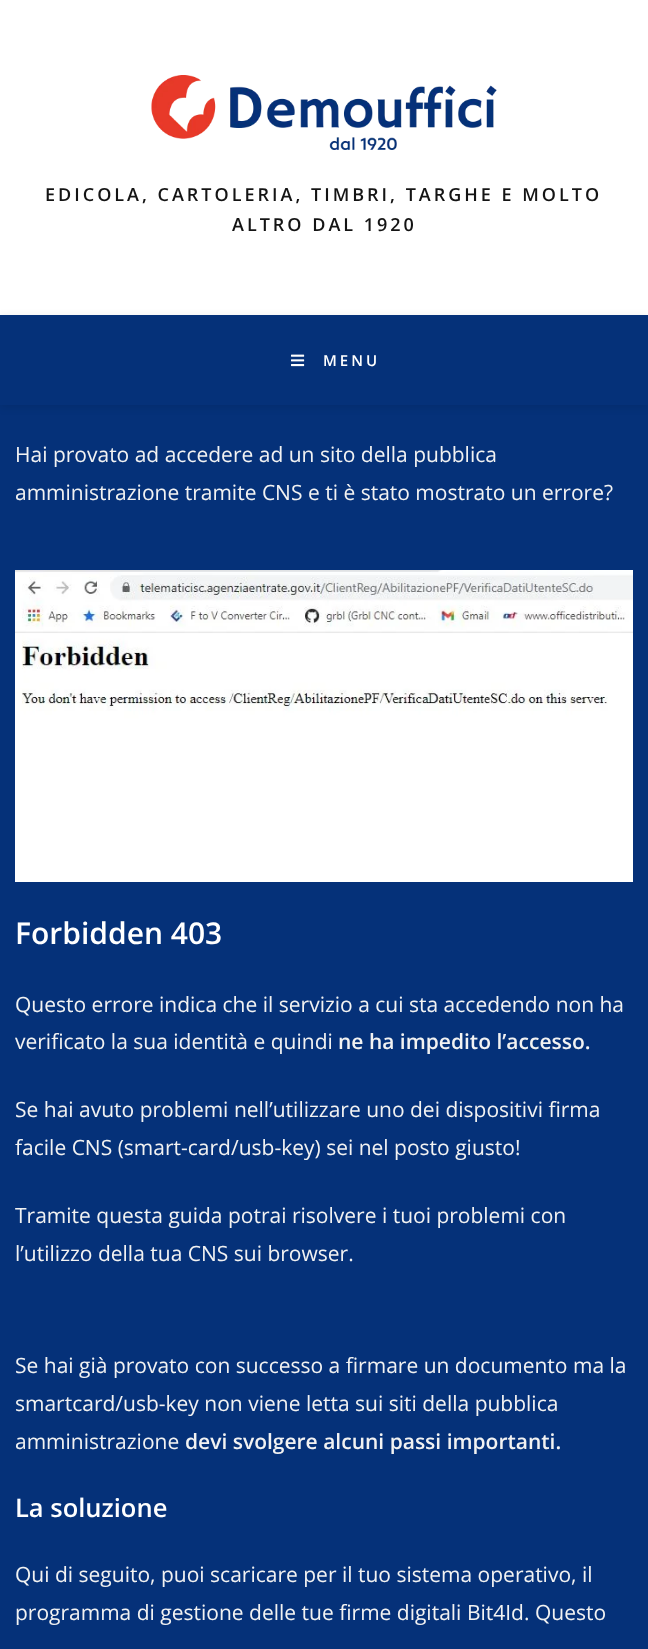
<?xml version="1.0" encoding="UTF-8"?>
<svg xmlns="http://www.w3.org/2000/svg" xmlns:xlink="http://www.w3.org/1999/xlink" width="648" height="1649">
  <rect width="100%" height="100%" fill="#053179" />
  <rect width="648" height="315" fill="#ffffff" />
  <image x="151" y="75" width="346" height="75" xlink:href="image1.png" />
  <rect y="317" width="648" height="90" fill="#000000" fill-opacity="0.1" filter="blur(4px)" />
  <rect y="315" width="648" height="90" fill="#053179" />
  <image x="291" y="354" width="14" height="13" xlink:href="image2.png" />
  <image x="15" y="570" width="618" height="312" xlink:href="image3.png" />
  <text x="45" y="201" style="font-family: Open Sans; font-size: 18px; font-weight: 600; letter-spacing: 3px; fill: #141414">EDICOLA, CARTOLERIA, TIMBRI, TARGHE E MOLTO</text>
  <text x="232" y="231" style="font-family: Open Sans; font-size: 18px; font-weight: 600; letter-spacing: 3px; fill: #141414">ALTRO DAL 1920</text>
  <text x="323" y="366" style="font-family: Open Sans; font-size: 15px; font-weight: 600; letter-spacing: 3px; fill: #ffffff">MENU</text>
  <text x="15" y="462" style="font-family: Open Sans; font-size: 21px; fill: #f2f2f2">Hai provato ad accedere ad un sito della pubblica</text>
  <text x="15" y="500" style="font-family: Open Sans; font-size: 21px; fill: #f2f2f2">amministrazione tramite CNS e ti è stato mostrato un errore?</text>
  <text x="15" y="944" style="font-family: Open Sans; font-size: 30px; font-weight: 600; fill: #ffffff">Forbidden 403</text>
  <text x="15" y="1012" style="font-family: Open Sans; font-size: 21px; fill: #f2f2f2">Questo errore indica che il servizio a cui sta accedendo non ha</text>
  <text x="15" y="1049" style="font-family: Open Sans; font-size: 21px; fill: #f2f2f2">verificato la sua identità e quindi</text>
  <text x="338" y="1049" style="font-family: Open Sans; font-size: 21px; font-weight: 600; fill: #f2f2f2">ne ha impedito l’accesso.</text>
  <text x="15" y="1117" style="font-family: Open Sans; font-size: 21px; fill: #f2f2f2">Se hai avuto problemi nell’utilizzare uno dei dispositivi firma</text>
  <text x="15" y="1155" style="font-family: Open Sans; font-size: 21px; fill: #f2f2f2">facile CNS (smart-card/usb-key) sei nel posto giusto!</text>
  <text x="15" y="1223" style="font-family: Open Sans; font-size: 21px; fill: #f2f2f2">Tramite questa guida potrai risolvere i tuoi problemi con</text>
  <text x="15" y="1261" style="font-family: Open Sans; font-size: 21px; fill: #f2f2f2">l’utilizzo della tua CNS sui browser.</text>
  <text x="15" y="1373" style="font-family: Open Sans; font-size: 21px; fill: #f2f2f2">Se hai già provato con successo a firmare un documento ma la</text>
  <text x="15" y="1411" style="font-family: Open Sans; font-size: 21px; fill: #f2f2f2">smartcard/usb-key non viene letta sui siti della pubblica</text>
  <text x="15" y="1449" style="font-family: Open Sans; font-size: 21px; fill: #f2f2f2">amministrazione</text>
  <text x="185" y="1449" style="font-family: Open Sans; font-size: 21px; font-weight: 600; fill: #f2f2f2">devi svolgere alcuni passi importanti.</text>
  <text x="15" y="1517" style="font-family: Open Sans; font-size: 25.5px; font-weight: 600; fill: #ffffff">La soluzione</text>
  <text x="15" y="1582" style="font-family: Open Sans; font-size: 21px; fill: #f2f2f2">Qui di seguito, puoi scaricare per il tuo sistema operativo, il</text>
  <text x="15" y="1620" style="font-family: Open Sans; font-size: 21px; fill: #f2f2f2">programma di gestione delle tue firme digitali Bit4Id. Questo</text>
</svg>
